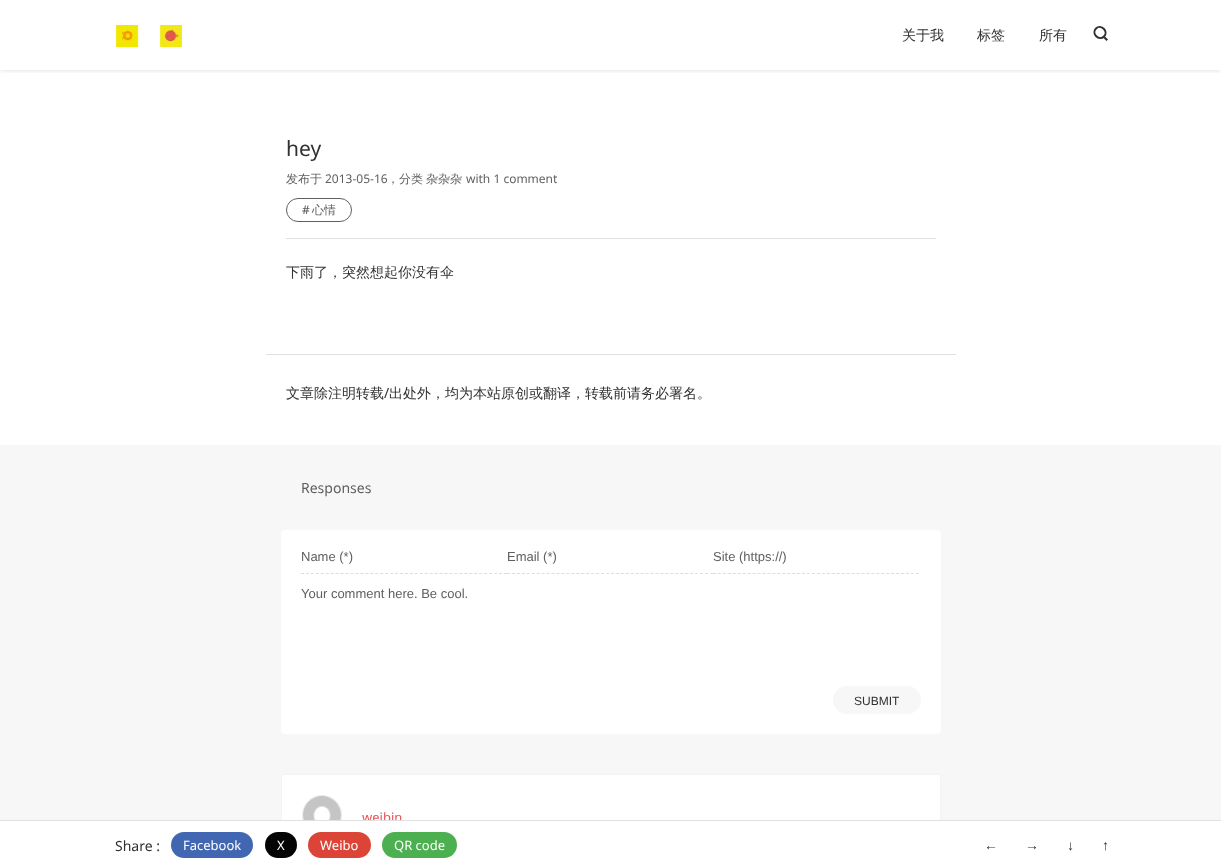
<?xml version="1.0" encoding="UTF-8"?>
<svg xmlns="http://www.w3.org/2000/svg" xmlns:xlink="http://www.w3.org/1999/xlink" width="1221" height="868">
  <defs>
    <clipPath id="clip1"><rect x="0" y="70" width="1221" height="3" /></clipPath>
  </defs>
  <rect width="100%" height="100%" fill="#ffffff" />
  <g clip-path="url(#clip1)">
    <rect y="1" width="1221" height="70" fill="#000000" fill-opacity="0.1" filter="blur(2.5px)" />
  </g>
  <image x="115" y="25" width="67" height="22" xlink:href="image1.png" />
  <path d="M 1096 28.5 c 5 -5 13 3 8 8 c -5 5 -13 -3 -8 -8 z" fill="none" stroke="#313131" stroke-width="2" />
  <path d="M 1103.5 38 l 1.5 -1.5 l 3 3 l -1.5 1.5 z" fill="#313131" />
  <rect x="286" y="238" width="650" height="1" fill="#e0e0e0" />
  <rect x="286.5" y="198.5" width="65" height="23" rx="11.5" fill="none" stroke="#5f5f5f" />
  <rect x="266" y="354" width="690" height="1" fill="#e0e0e0" />
  <rect y="445" width="1221" height="375" fill="#f7f7f7" />
  <rect x="281" y="530" width="660" height="204" rx="3" fill="#ffffff" />
  <path d="M 301 573.5 h 206" fill="none" stroke="#dddddd" stroke-dasharray="3 1.95" />
  <path d="M 507 573.5 h 206" fill="none" stroke="#dddddd" stroke-dasharray="3 1.95" />
  <path d="M 713 573.5 h 206" fill="none" stroke="#dddddd" stroke-dasharray="3 1.95" />
  <rect x="833" y="686" width="88" height="28" rx="14" fill="#f7f7f7" />
  <rect x="281" y="774" width="660" height="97" rx="3" fill="#ffffff" />
  <rect x="281.5" y="774.5" width="659" height="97" rx="2.5" fill="none" stroke="#b8c5d6" stroke-opacity="0.2" />
  <circle cx="322" cy="815" r="19.5" fill="none" stroke="#eaeaea" />
  <image x="303" y="796" width="38" height="24" xlink:href="image2.png" />
  <rect x="171" y="832" width="82" height="26" rx="13" fill="#4267b2" />
  <text x="902" y="40" style="font-family: WenQuanYi Zen Hei; font-size: 14px; font-weight: 500; fill: #313131">关于我</text>
  <text x="977" y="40" style="font-family: WenQuanYi Zen Hei; font-size: 14px; font-weight: 500; fill: #313131">标签</text>
  <text x="1039" y="40" style="font-family: WenQuanYi Zen Hei; font-size: 14px; font-weight: 500; fill: #313131">所有</text>
  <text x="286" y="156" style="font-family: Noto Sans; font-size: 21px; fill: #313131">hey</text>
  <text x="286" y="183" style="font-family: WenQuanYi Zen Hei; font-size: 12px; font-weight: 500; fill: #5f5f5f">发布于</text>
  <text x="325" y="183" style="font-family: Noto Sans; font-size: 12px; fill: #5f5f5f">2013-05-16</text>
  <text x="387" y="183" style="font-family: WenQuanYi Zen Hei; font-size: 12px; font-weight: 500; fill: #5f5f5f">，分类</text>
  <text x="426" y="183" style="font-family: WenQuanYi Zen Hei; font-size: 12px; font-weight: 500; fill: #5f5f5f">杂杂杂</text>
  <text x="466" y="183" style="font-family: Noto Sans; font-size: 12px; fill: #5f5f5f">with 1 comment</text>
  <text x="302" y="214" style="font-family: Noto Sans; font-size: 12px; font-weight: 500; fill: #5f5f5f">#</text>
  <text x="312" y="214" style="font-family: WenQuanYi Zen Hei; font-size: 12px; font-weight: 500; fill: #5f5f5f">心情</text>
  <text x="286" y="277" style="font-family: WenQuanYi Zen Hei; font-size: 14px; font-weight: 500; fill: #313131">下雨了，突然想起你没有伞</text>
  <text x="286" y="398" style="font-family: WenQuanYi Zen Hei; font-size: 14px; font-weight: 500; fill: #313131">文章除注明转载</text>
  <text x="384" y="398" style="font-family: Noto Sans; font-size: 14px; fill: #313131">/</text>
  <text x="389" y="398" style="font-family: WenQuanYi Zen Hei; font-size: 14px; font-weight: 500; fill: #313131">出处外，均为本站原创或翻译，转载前请务必署名。</text>
  <text x="301" y="493" style="font-family: Noto Sans; font-size: 14px; fill: #5f5f5f">Responses</text>
  <text x="301" y="561" style="font-family: Liberation Sans; font-size: 13px; fill: #5f5f5f">Name (*)</text>
  <text x="507" y="561" style="font-family: Liberation Sans; font-size: 13px; fill: #5f5f5f">Email (*)</text>
  <text x="713" y="561" style="font-family: Liberation Sans; font-size: 13px; fill: #5f5f5f">Site (https://)</text>
  <text x="301" y="598" style="font-family: Liberation Sans; font-size: 13px; fill: #5f5f5f">Your comment here. Be cool.</text>
  <text x="854" y="705" style="font-family: Liberation Sans; font-size: 12px; fill: #313131">SUBMIT</text>
  <text x="362" y="822" style="font-family: Noto Sans; font-size: 13px; fill: #eb5055">weibin</text>
  <rect x="281" y="821" width="660" height="47" fill="#ffffff" />
  <rect y="820" width="1221" height="1" fill="#e0e0e0" />
  <text x="115" y="851" style="font-family: Noto Sans; font-size: 14px; fill: #313131">Share :</text>
  <text x="183" y="850" style="font-family: Noto Sans; font-size: 13px; fill: #ffffff">Facebook</text>
  <rect x="265" y="832" width="32" height="26" rx="13" fill="#040404" />
  <text x="277" y="850" style="font-family: Noto Sans; font-size: 13px; fill: #ffffff">X</text>
  <rect x="308" y="832" width="63" height="26" rx="13" fill="#db4437" />
  <text x="320" y="850" style="font-family: Noto Sans; font-size: 13px; fill: #ffffff">Weibo</text>
  <rect x="382" y="832" width="75" height="26" rx="13" fill="#4caf50" />
  <text x="394" y="850" style="font-family: Noto Sans; font-size: 13px; fill: #ffffff">QR code</text>
  <text x="984" y="850" style="font-family: Liberation Sans; font-size: 14px; fill: #313131">←</text>
  <text x="1025" y="850" style="font-family: Liberation Sans; font-size: 14px; fill: #313131">→</text>
  <text x="1067" y="850" style="font-family: Liberation Sans; font-size: 14px; fill: #313131">↓</text>
  <text x="1102" y="850" style="font-family: Liberation Sans; font-size: 14px; fill: #313131">↑</text>
</svg>
